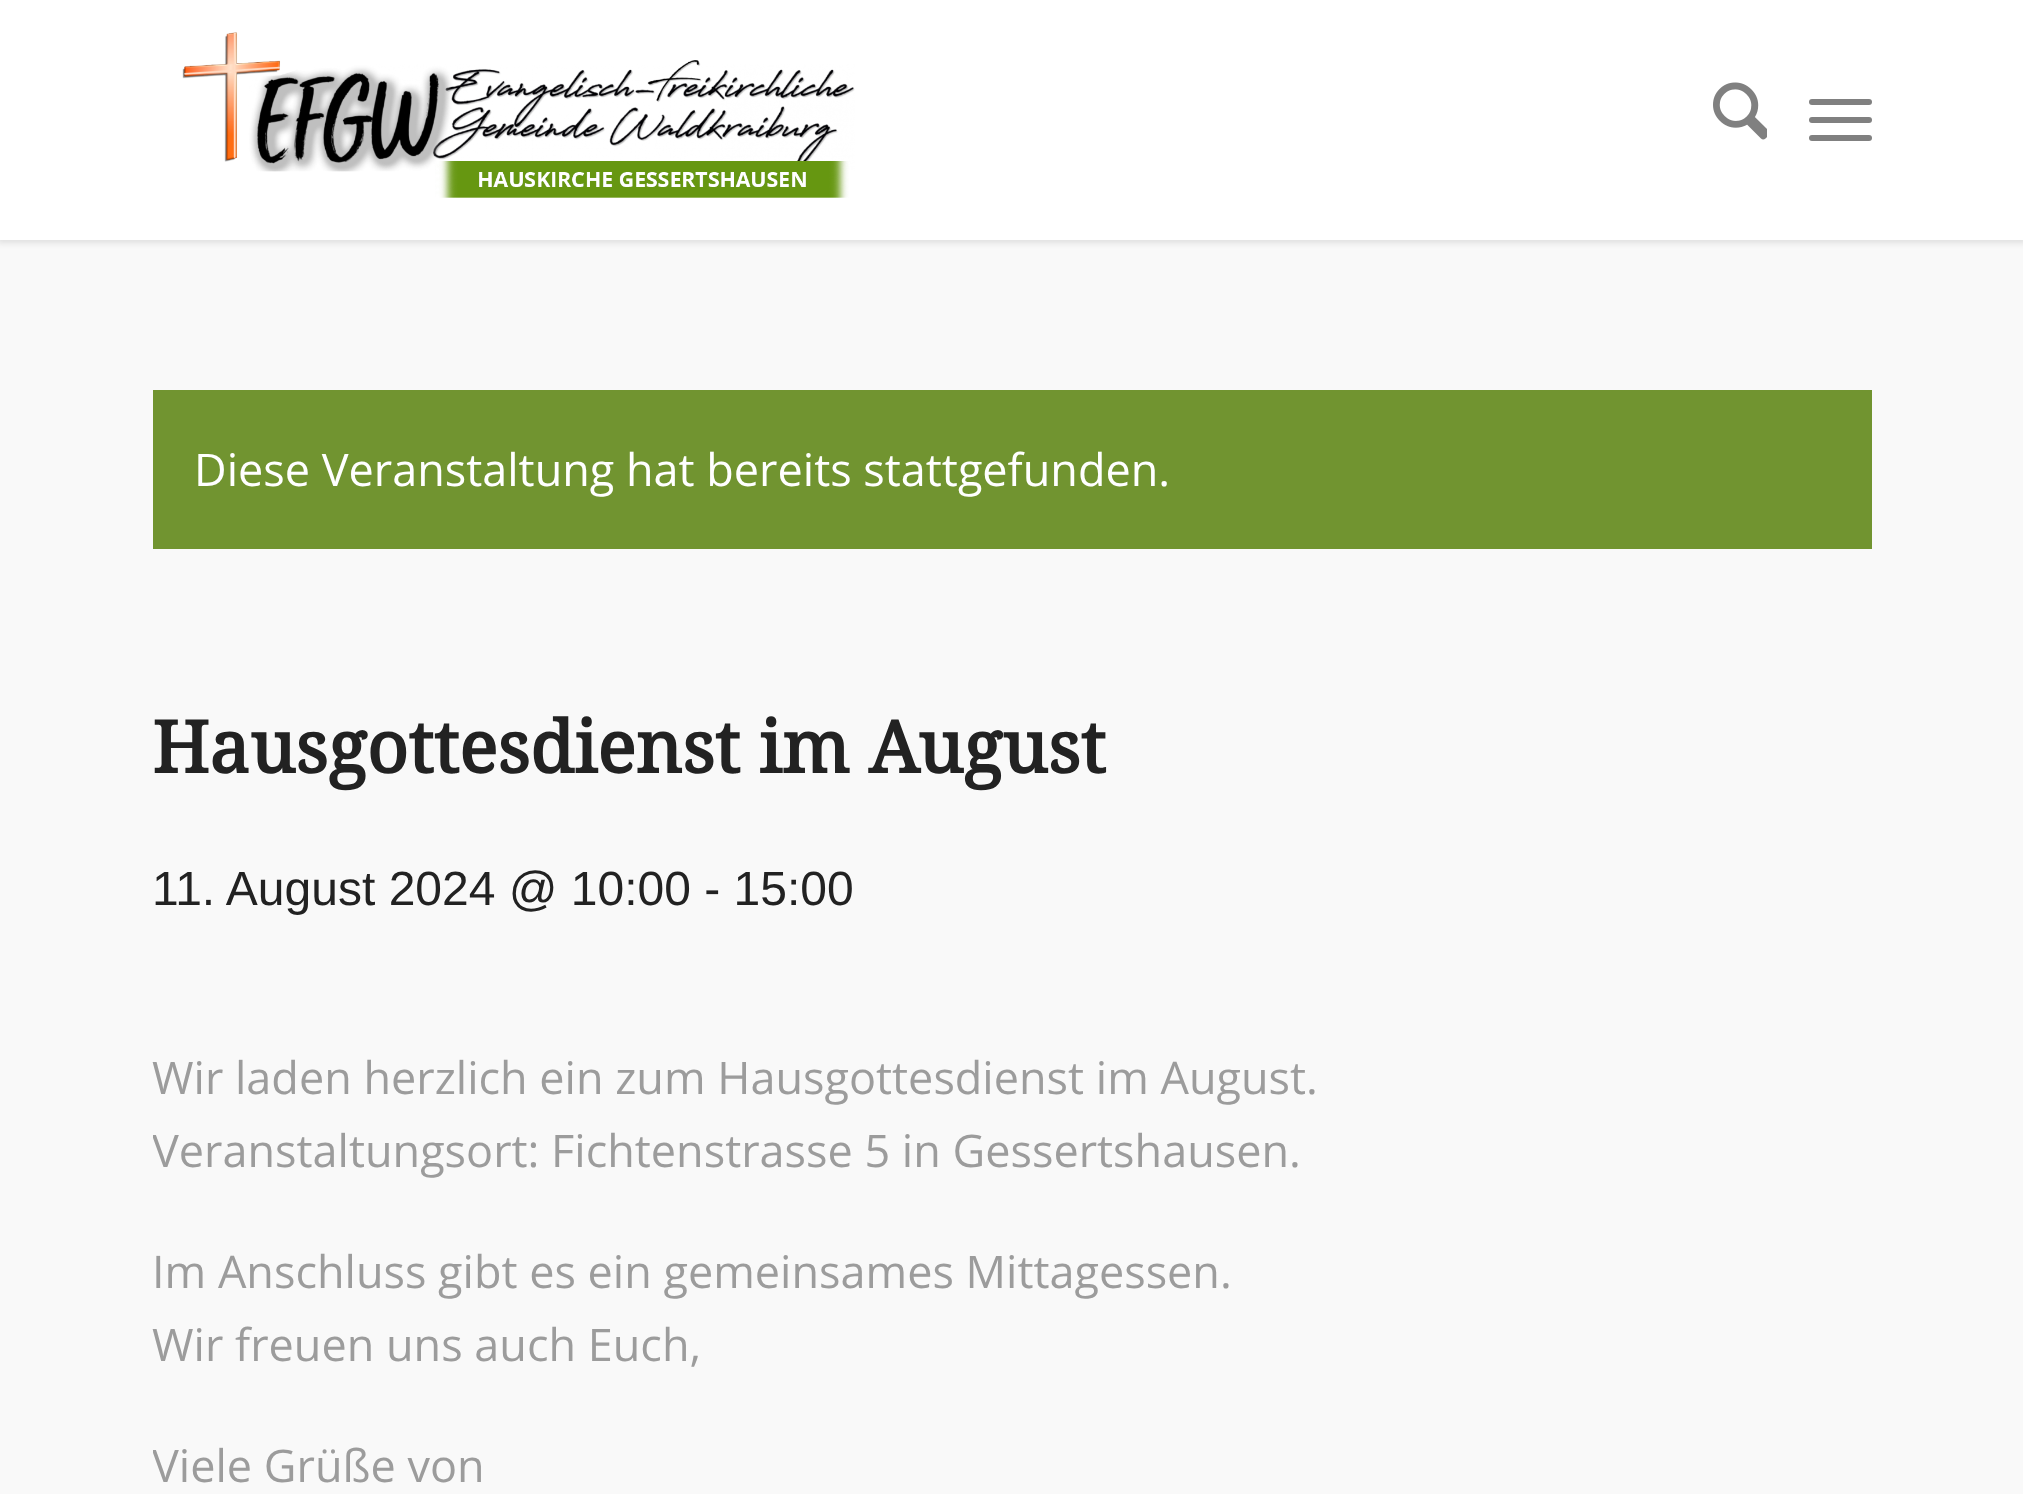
<?xml version="1.0" encoding="UTF-8"?>
<svg xmlns="http://www.w3.org/2000/svg" xmlns:xlink="http://www.w3.org/1999/xlink" width="2023" height="1494">
  <defs>
    <clipPath id="clip1"><rect x="153" y="699" width="1719" height="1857" /></clipPath>
  </defs>
  <rect width="100%" height="100%" fill="#f9f9f9" />
  <rect x="-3" y="-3" width="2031" height="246" fill="#000000" fill-opacity="0.1" filter="blur(3px)" />
  <rect width="2023" height="240" fill="#ffffff" />
  <image x="182" y="32" width="673" height="166" xlink:href="image1.png" />
  <image x="1713" y="82" width="54" height="58" xlink:href="image2.png" />
  <rect x="1809" y="117" width="63" height="6" rx="3" fill="#808080" />
  <rect x="1809" y="99" width="63" height="6" rx="3" fill="#808080" />
  <rect x="1809" y="135" width="63" height="6" rx="3" fill="#808080" />
  <rect x="153" y="390" width="1719" height="159" fill="#719430" />
  <text x="194" y="486" style="font-family: Open Sans; font-size: 45px; fill: #ffffff">Diese Veranstaltung hat bereits stattgefunden.</text>
  <text x="152" y="773" style="font-family: Droid Serif; font-size: 72px; font-weight: bold; fill: #222222">Hausgottesdienst im August</text>
  <text x="152" y="905" style="font-family: Liberation Sans; font-size: 48px; fill: #222222">11. August 2024 @ 10:00 - 15:00</text>
  <text x="152" y="1094" style="font-family: Open Sans; font-size: 45px; fill: #9c9c9c">Wir laden herzlich ein zum Hausgottesdienst im August.</text>
  <g clip-path="url(#clip1)">
    <text x="152" y="1167" style="font-family: Open Sans; font-size: 45px; fill: #9c9c9c">Veranstaltungsort: Fichtenstrasse 5 in Gessertshausen.</text>
  </g>
  <text x="152" y="1288" style="font-family: Open Sans; font-size: 45px; fill: #9c9c9c">Im Anschluss gibt es ein gemeinsames Mittagessen.</text>
  <text x="152" y="1361" style="font-family: Open Sans; font-size: 45px; fill: #9c9c9c">Wir freuen uns auch Euch,</text>
  <g clip-path="url(#clip1)">
    <text x="152" y="1482" style="font-family: Open Sans; font-size: 45px; fill: #9c9c9c">Viele Grüße von</text>
  </g>
</svg>
